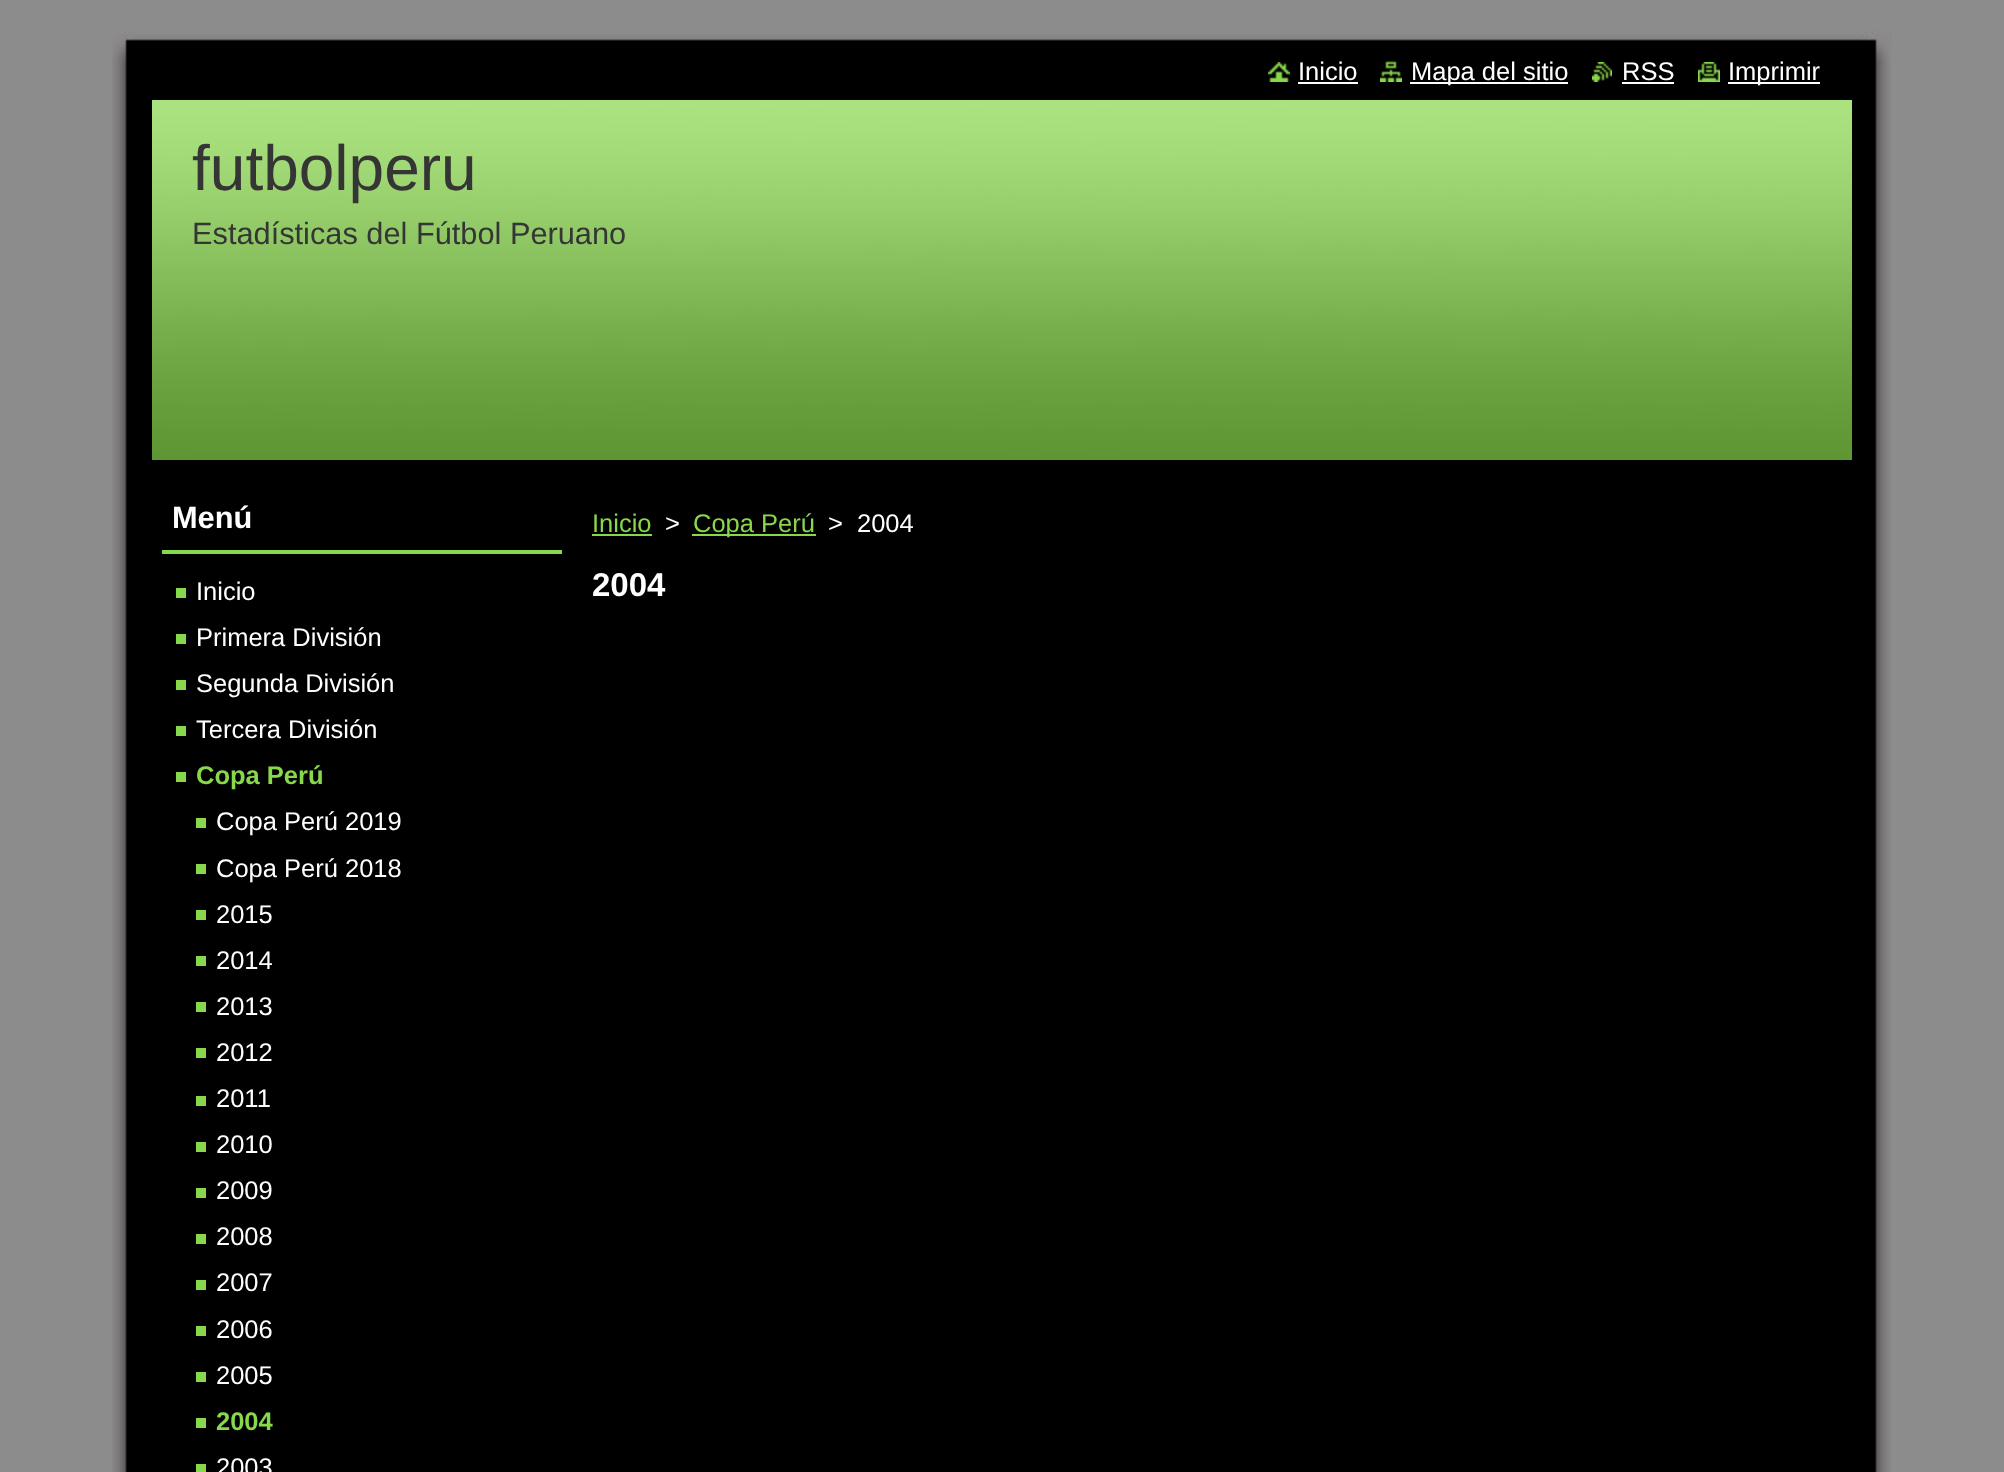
<?xml version="1.0" encoding="UTF-8"?>
<svg xmlns="http://www.w3.org/2000/svg" xmlns:xlink="http://www.w3.org/1999/xlink" width="2004" height="1472">
  <rect width="100%" height="100%" fill="#8c8c8c" />
  <image x="112" y="30" width="1779" height="1414" xlink:href="image1.png" />
  <image x="112" y="30" width="1778" height="32" xlink:href="image2.png" />
  <image x="112" y="1444" width="1779" height="28" xlink:href="image3.png" />
  <image x="1268" y="62" width="22" height="20" xlink:href="image4.png" />
  <rect x="1298" y="82" width="60" height="2" fill="#ffffff" />
  <image x="1380" y="60" width="22" height="22" xlink:href="image5.png" />
  <rect x="1410" y="82" width="158" height="2" fill="#ffffff" />
  <image x="1592" y="62" width="20" height="20" xlink:href="image6.png" />
  <rect x="1622" y="82" width="52" height="2" fill="#ffffff" />
  <image x="1698" y="62" width="22" height="20" xlink:href="image7.png" />
  <rect x="1728" y="82" width="92" height="2" fill="#ffffff" />
  <image x="152" y="100" width="1700" height="360" xlink:href="image8.png" />
  <rect x="162" y="550" width="400" height="4" fill="#87d84b" />
  <rect x="176" y="588" width="10" height="10" fill="#87d84b" />
  <rect x="176" y="634" width="10" height="10" fill="#87d84b" />
  <rect x="176" y="680" width="10" height="10" fill="#87d84b" />
  <rect x="176" y="726" width="10" height="10" fill="#87d84b" />
  <rect x="176" y="772" width="10" height="10" fill="#87d84b" />
  <rect x="196" y="818" width="10" height="10" fill="#87d84b" />
  <rect x="196" y="864" width="10" height="10" fill="#87d84b" />
  <rect x="196" y="910" width="10" height="10" fill="#87d84b" />
  <rect x="196" y="956" width="10" height="10" fill="#87d84b" />
  <rect x="196" y="1002" width="10" height="10" fill="#87d84b" />
  <rect x="196" y="1048" width="10" height="10" fill="#87d84b" />
  <rect x="196" y="1096" width="10" height="10" fill="#87d84b" />
  <rect x="196" y="1142" width="10" height="10" fill="#87d84b" />
  <rect x="196" y="1188" width="10" height="10" fill="#87d84b" />
  <rect x="196" y="1234" width="10" height="10" fill="#87d84b" />
  <rect x="196" y="1280" width="10" height="10" fill="#87d84b" />
  <rect x="196" y="1326" width="10" height="10" fill="#87d84b" />
  <rect x="196" y="1372" width="10" height="10" fill="#87d84b" />
  <rect x="196" y="1418" width="10" height="10" fill="#87d84b" />
  <rect x="196" y="1464" width="10" height="8" fill="#87d84b" />
  <rect x="592" y="534" width="60" height="2" fill="#87d84b" />
  <rect x="692" y="534" width="124" height="2" fill="#87d84b" />
  <text x="1298" y="80" style="font-family: Liberation Sans; font-size: 25.5px; fill: #ffffff">Inicio</text>
  <text x="1411" y="80" style="font-family: Liberation Sans; font-size: 25.5px; fill: #ffffff">Mapa del sitio</text>
  <text x="1622" y="80" style="font-family: Liberation Sans; font-size: 25.5px; fill: #ffffff">RSS</text>
  <text x="1728" y="80" style="font-family: Liberation Sans; font-size: 25.5px; fill: #ffffff">Imprimir</text>
  <text x="192" y="190" style="font-family: Liberation Sans; font-size: 64px; fill: #353535">futbolperu</text>
  <text x="192" y="244" style="font-family: Liberation Sans; font-size: 30.75px; fill: #353535">Estadísticas del Fútbol Peruano</text>
  <text x="172" y="528" style="font-family: Liberation Sans; font-size: 30.75px; font-weight: bold; fill: #ffffff">Menú</text>
  <text x="196" y="600" style="font-family: Liberation Sans; font-size: 25.5px; fill: #ffffff">Inicio</text>
  <text x="196" y="646" style="font-family: Liberation Sans; font-size: 25.5px; fill: #ffffff">Primera División</text>
  <text x="196" y="692" style="font-family: Liberation Sans; font-size: 25.5px; fill: #ffffff">Segunda División</text>
  <text x="196" y="738" style="font-family: Liberation Sans; font-size: 25.5px; fill: #ffffff">Tercera División</text>
  <text x="196" y="784" style="font-family: Liberation Sans; font-size: 25.5px; font-weight: bold; fill: #87d84b">Copa Perú</text>
  <text x="216" y="830" style="font-family: Liberation Sans; font-size: 25.5px; fill: #ffffff">Copa Perú 2019</text>
  <text x="216" y="877" style="font-family: Liberation Sans; font-size: 25.5px; fill: #ffffff">Copa Perú 2018</text>
  <text x="216" y="923" style="font-family: Liberation Sans; font-size: 25.5px; fill: #ffffff">2015</text>
  <text x="216" y="969" style="font-family: Liberation Sans; font-size: 25.5px; fill: #ffffff">2014</text>
  <text x="216" y="1015" style="font-family: Liberation Sans; font-size: 25.5px; fill: #ffffff">2013</text>
  <text x="216" y="1061" style="font-family: Liberation Sans; font-size: 25.5px; fill: #ffffff">2012</text>
  <text x="216" y="1107" style="font-family: Liberation Sans; font-size: 25.5px; fill: #ffffff">2011</text>
  <text x="216" y="1153" style="font-family: Liberation Sans; font-size: 25.5px; fill: #ffffff">2010</text>
  <text x="216" y="1199" style="font-family: Liberation Sans; font-size: 25.5px; fill: #ffffff">2009</text>
  <text x="216" y="1245" style="font-family: Liberation Sans; font-size: 25.5px; fill: #ffffff">2008</text>
  <text x="216" y="1291" style="font-family: Liberation Sans; font-size: 25.5px; fill: #ffffff">2007</text>
  <text x="216" y="1338" style="font-family: Liberation Sans; font-size: 25.5px; fill: #ffffff">2006</text>
  <text x="216" y="1384" style="font-family: Liberation Sans; font-size: 25.5px; fill: #ffffff">2005</text>
  <text x="216" y="1430" style="font-family: Liberation Sans; font-size: 25.5px; font-weight: bold; fill: #87d84b">2004</text>
  <text x="216" y="1476" style="font-family: Liberation Sans; font-size: 25.5px; fill: #ffffff">2003</text>
  <text x="592" y="532" style="font-family: Liberation Sans; font-size: 25.5px; fill: #87d84b">Inicio</text>
  <text x="665" y="532" style="font-family: Liberation Sans; font-size: 25.5px; fill: #ffffff">&gt;</text>
  <text x="693" y="532" style="font-family: Liberation Sans; font-size: 25.5px; fill: #87d84b">Copa Perú</text>
  <text x="828" y="532" style="font-family: Liberation Sans; font-size: 25.5px; fill: #ffffff">&gt;</text>
  <text x="857" y="532" style="font-family: Liberation Sans; font-size: 25.5px; fill: #ffffff">2004</text>
  <text x="592" y="596" style="font-family: Liberation Sans; font-size: 33px; font-weight: bold; fill: #ffffff">2004</text>
</svg>
